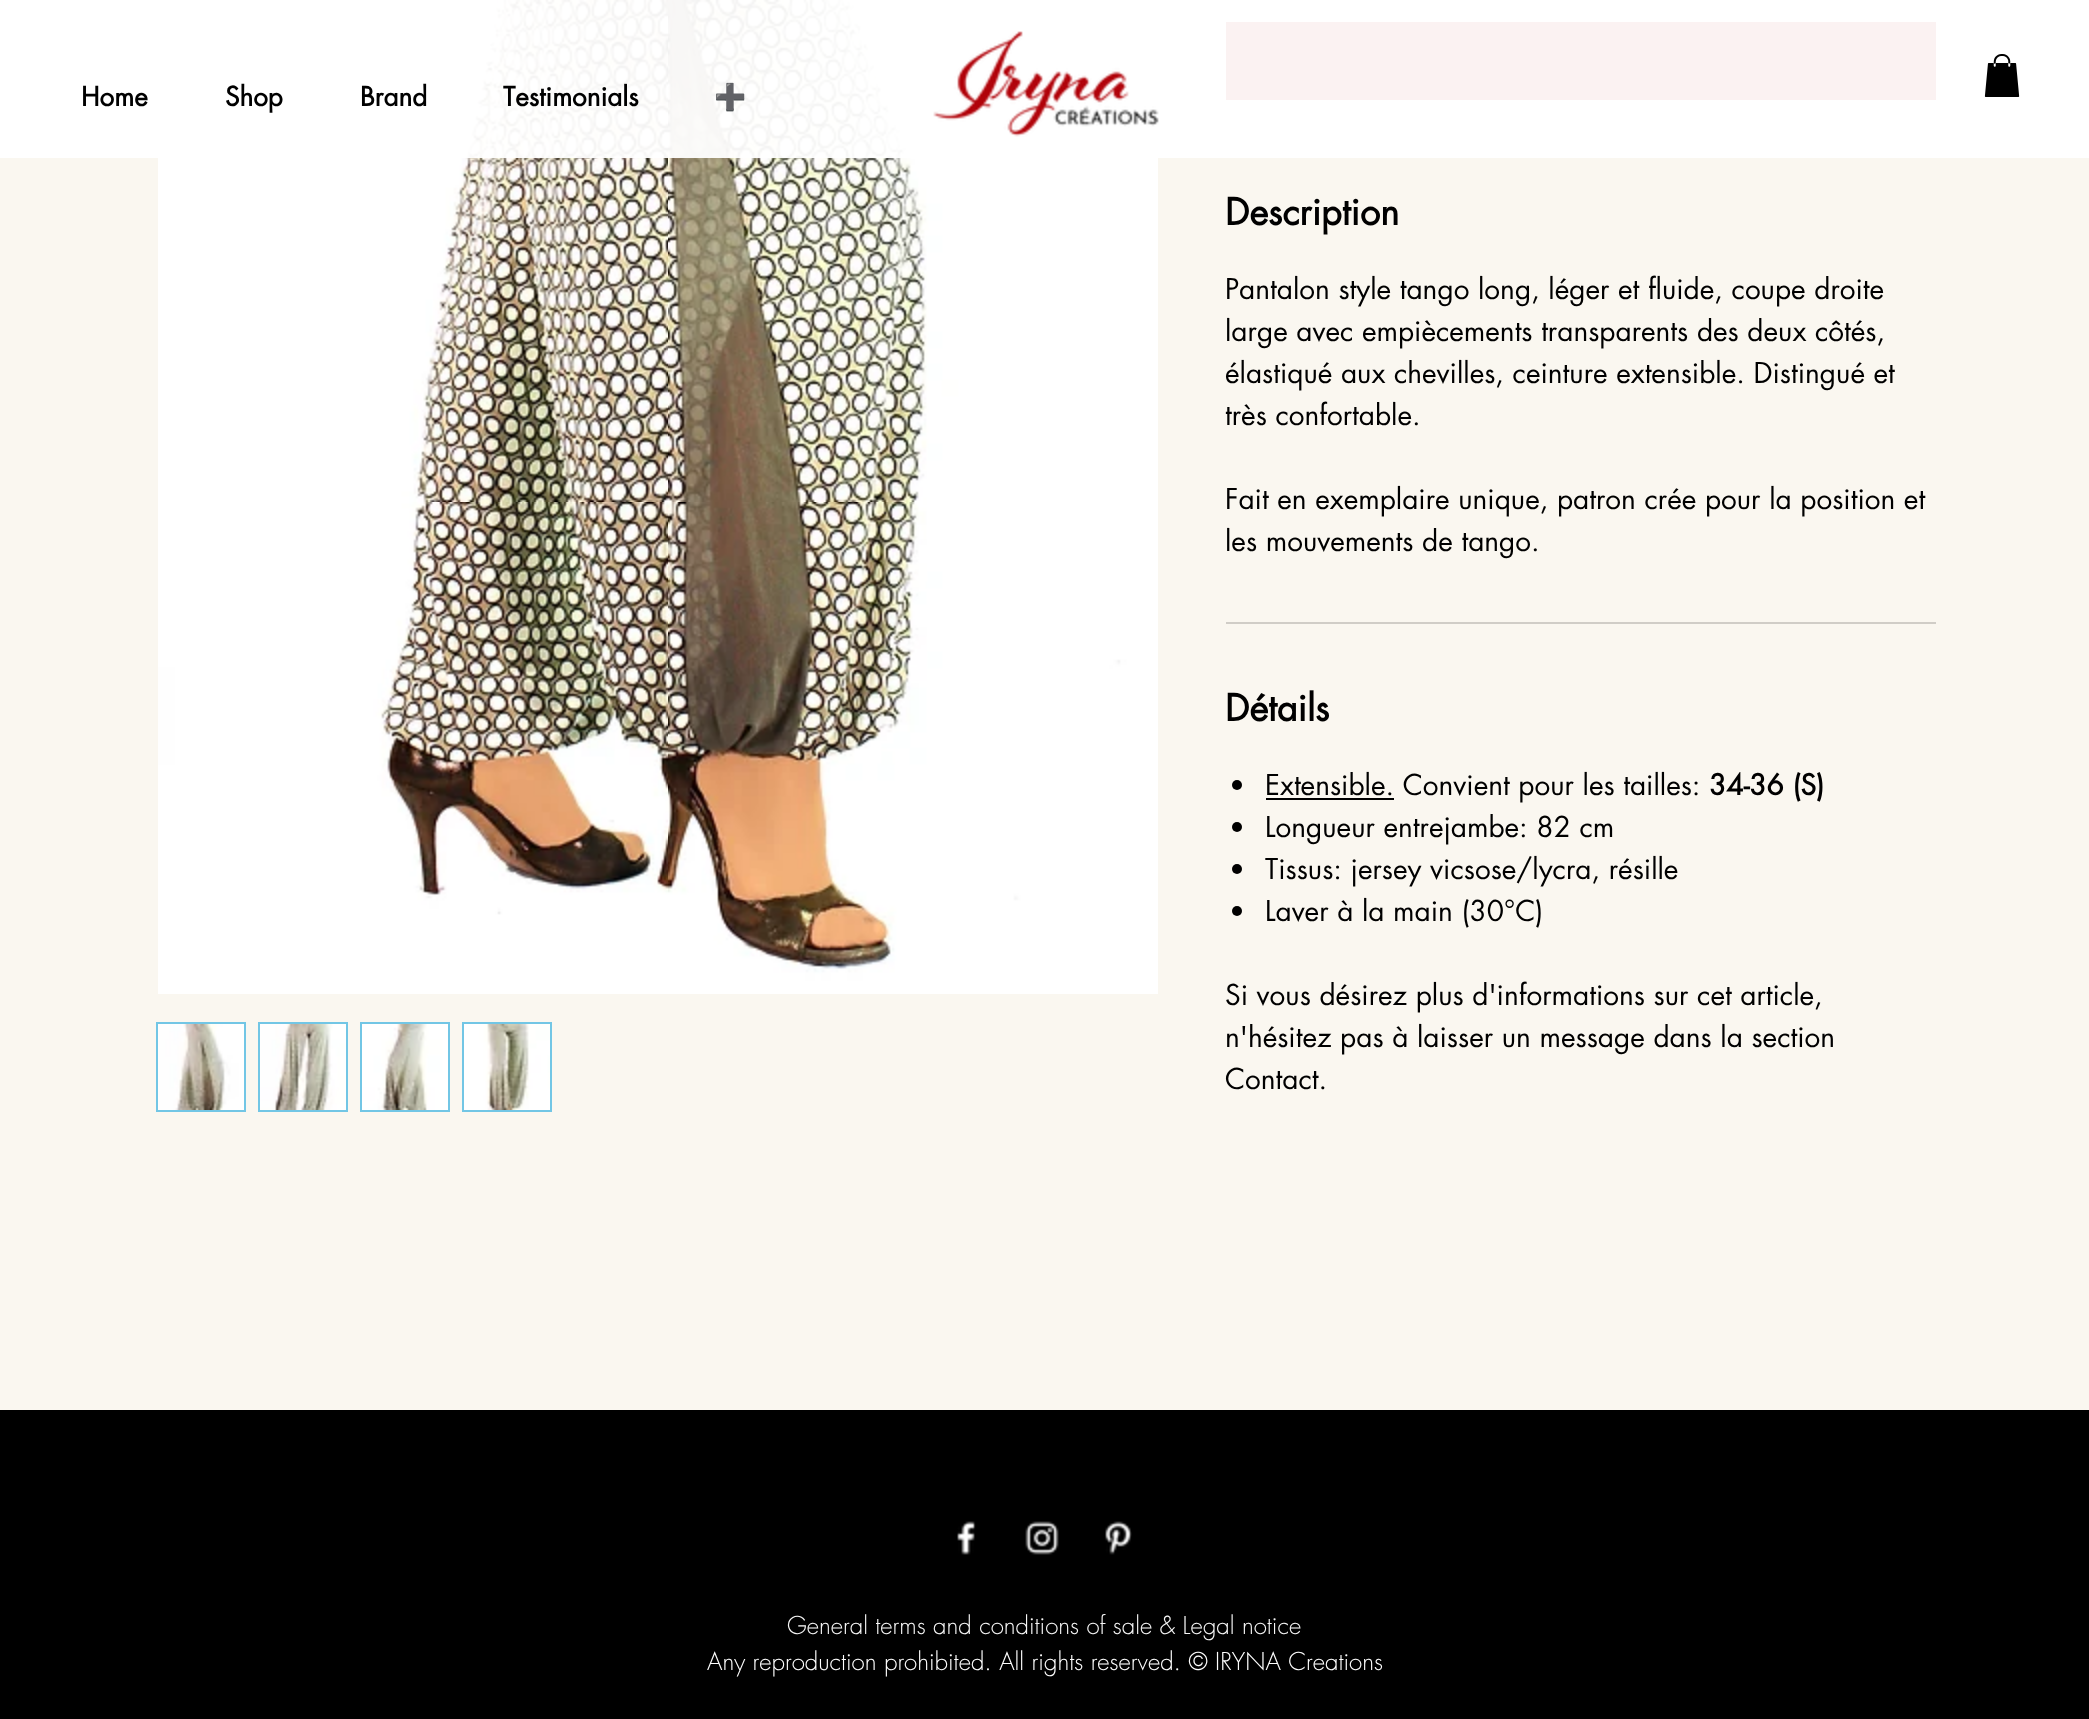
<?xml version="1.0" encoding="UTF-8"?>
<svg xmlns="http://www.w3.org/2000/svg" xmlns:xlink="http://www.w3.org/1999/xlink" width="2089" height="1719">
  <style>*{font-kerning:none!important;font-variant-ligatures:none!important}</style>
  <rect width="100%" height="100%" fill="#faf7f0" />
  <image x="158" y="0" width="1000" height="994" xlink:href="image3.png" />
  <rect x="1226" y="22" width="710" height="78" fill="#b10009" />
  <rect width="2089" height="158" fill="#ffffff" fill-opacity="0.95" />
  <image x="933" y="31" width="226" height="106" xlink:href="image1.png" />
  <image x="1984" y="54" width="36" height="43" xlink:href="image2.png" />
  <rect x="156" y="1022" width="90" height="90" fill="#72c6e5" />
  <image x="158" y="1024" width="86" height="86" xlink:href="image4.png" />
  <rect x="258" y="1022" width="90" height="90" fill="#72c6e5" />
  <image x="260" y="1024" width="86" height="86" xlink:href="image5.png" />
  <rect x="360" y="1022" width="90" height="90" fill="#72c6e5" />
  <image x="362" y="1024" width="86" height="86" xlink:href="image6.png" />
  <rect x="462" y="1022" width="90" height="90" fill="#72c6e5" />
  <image x="464" y="1024" width="86" height="86" xlink:href="image7.png" />
  <rect x="1226" y="622" width="710" height="2" fill="#d0cdc7" />
  <circle cx="1237" cy="785" r="5" fill="#000000" />
  <rect x="1266" y="798" width="128" height="2" fill="#000000" />
  <circle cx="1237" cy="827" r="5" fill="#000000" />
  <circle cx="1237" cy="869" r="5" fill="#000000" />
  <circle cx="1237" cy="911" r="5" fill="#000000" />
  <rect y="1410" width="2089" height="309" fill="#000000" />
  <image x="957" y="1521" width="19" height="34" xlink:href="image8.png" />
  <image x="1025" y="1521" width="34" height="34" xlink:href="image9.png" />
  <image x="1105" y="1521" width="27" height="34" xlink:href="image10.png" />
  <text x="81" y="106" style="font-family: futura; font-size: 26px; font-weight: bold; fill: #000000">Home</text>
  <text x="225" y="106" style="font-family: futura; font-size: 26px; font-weight: bold; fill: #000000">Shop</text>
  <text x="360" y="106" style="font-family: futura; font-size: 26px; font-weight: bold; fill: #000000">Brand</text>
  <text x="503" y="106" style="font-family: futura; font-size: 26px; font-weight: bold; fill: #000000">Testimonials</text>
  <text x="714" y="106" style="font-family: Noto Color Emoji; font-size: 26px; font-weight: bold; fill: #000000">➕</text>
  <text x="1225" y="225" style="font-family: futura; font-size: 36px; font-weight: bold; fill: #000000">Description</text>
  <text x="1225" y="299" style="font-family: futura; font-size: 28px; fill: #000000">Pantalon style tango long, léger et fluide, coupe droite</text>
  <text x="1225" y="341" style="font-family: futura; font-size: 28px; fill: #000000">large avec empiècements transparents des deux côtés,</text>
  <text x="1225" y="383" style="font-family: futura; font-size: 28px; fill: #000000">élastiqué aux chevilles, ceinture extensible. Distingué et</text>
  <text x="1225" y="425" style="font-family: futura; font-size: 28px; fill: #000000">très confortable.</text>
  <text x="1225" y="509" style="font-family: futura; font-size: 28px; fill: #000000">Fait en exemplaire unique, patron crée pour la position et</text>
  <text x="1225" y="551" style="font-family: futura; font-size: 28px; fill: #000000">les mouvements de tango.</text>
  <text x="1225" y="721" style="font-family: futura; font-size: 36px; font-weight: bold; fill: #000000">Détails</text>
  <text x="1265" y="795" style="font-family: futura; font-size: 28px; fill: #000000">Extensible. Convient pour les tailles:</text>
  <text x="1709" y="795" style="font-family: futura; font-size: 28px; font-weight: bold; fill: #000000">34-36 (S)</text>
  <text x="1265" y="837" style="font-family: futura; font-size: 28px; fill: #000000">Longueur entrejambe: 82 cm</text>
  <text x="1265" y="879" style="font-family: futura; font-size: 28px; fill: #000000">Tissus: jersey vicsose/lycra, résille</text>
  <text x="1265" y="921" style="font-family: futura; font-size: 28px; fill: #000000">Laver à la main (30°C)</text>
  <text x="1225" y="1005" style="font-family: futura; font-size: 28px; fill: #000000">Si vous désirez plus d'informations sur cet article,</text>
  <text x="1225" y="1047" style="font-family: futura; font-size: 28px; fill: #000000">n'hésitez pas à laisser un message dans la section</text>
  <text x="1225" y="1089" style="font-family: futura; font-size: 28px; fill: #000000">Contact.</text>
  <text x="787" y="1634" style="font-family: futura; font-size: 24px; font-weight: 300; fill: #f7f7f7">General terms and conditions of sale &amp; Legal notice</text>
  <text x="707" y="1670" style="font-family: futura; font-size: 24px; font-weight: 300; fill: #ffffff">Any reproduction prohibited. All rights reserved. © IRYNA Creations</text>
</svg>
